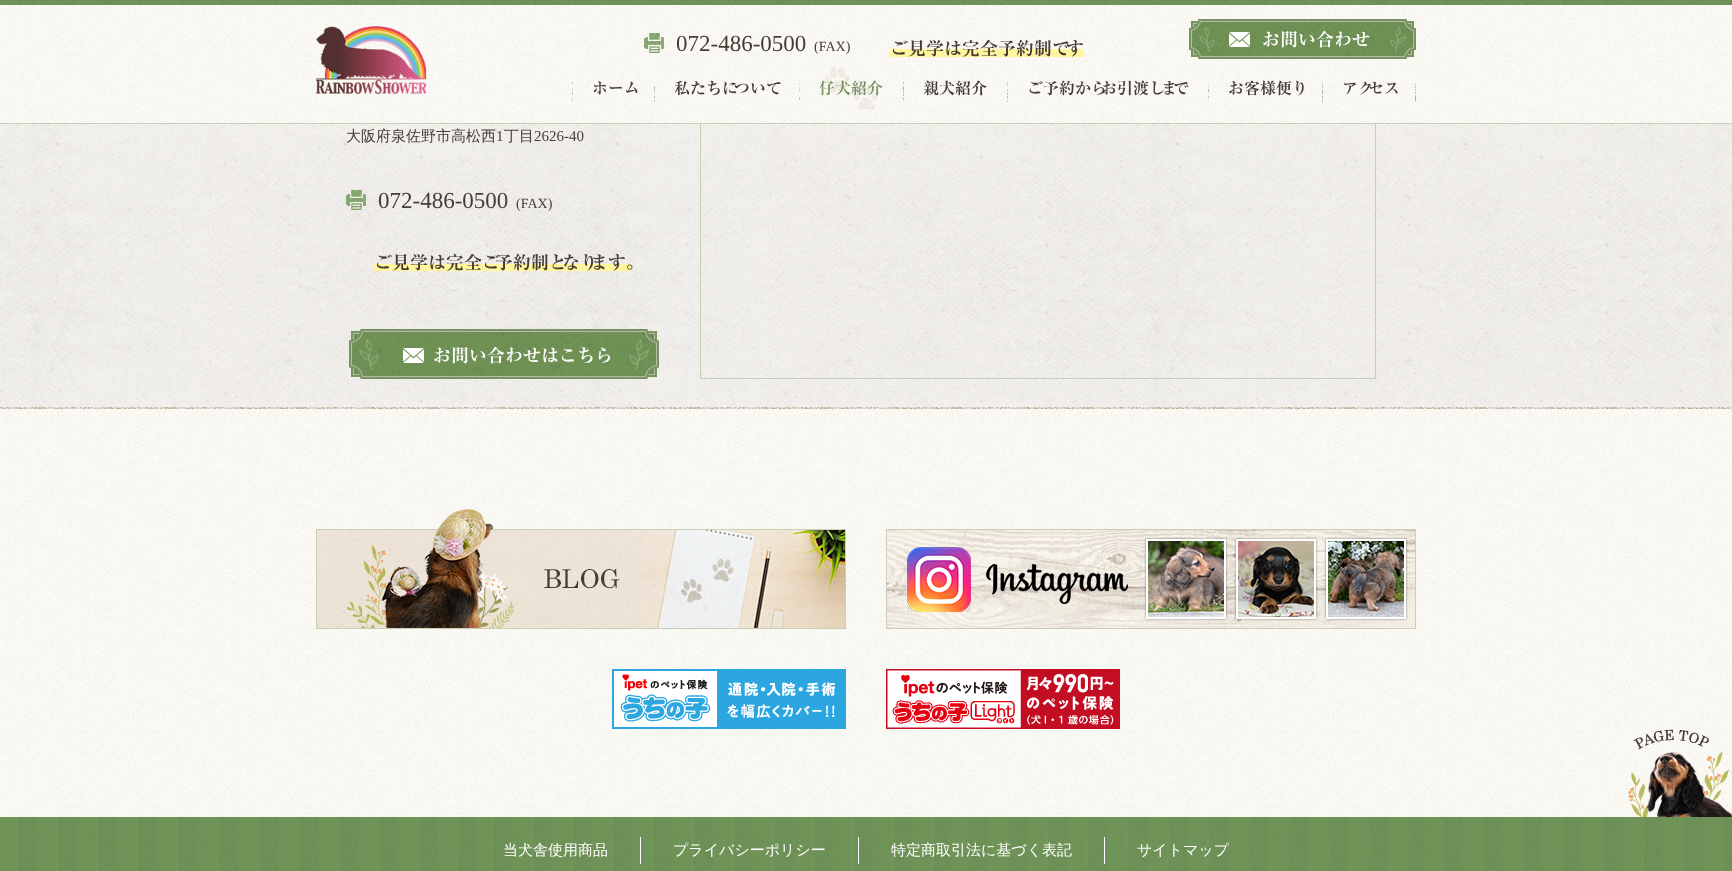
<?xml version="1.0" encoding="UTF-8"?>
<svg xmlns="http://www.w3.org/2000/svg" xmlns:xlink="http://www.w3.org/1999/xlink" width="1732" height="871">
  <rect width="100%" height="100%" fill="#ffffff" />
  <image x="0" y="124" width="1732" height="693" xlink:href="image1.png" />
  <image x="0" y="124" width="1732" height="283" xlink:href="image17.png" />
  <rect x="700.5" y="96.5" width="675" height="282" fill="none" stroke="#c9ceb4" />
  <image x="0" y="5" width="1732" height="118" xlink:href="image2.png" />
  <rect y="123" width="1732" height="1" fill="#c9ceb4" />
  <image x="0" y="0" width="1732" height="5" xlink:href="image3.png" />
  <image x="316" y="26" width="111" height="68" xlink:href="image4.png" />
  <image x="644" y="33" width="20" height="20" xlink:href="image5.png" />
  <rect x="890" y="49" width="194" height="8" fill="#fff59d" />
  <image x="1189" y="19" width="227" height="40" xlink:href="image6.png" />
  <image x="1229" y="31" width="21" height="16" xlink:href="image7.png" />
  <image x="572" y="82" width="1" height="19" xlink:href="image8.png" />
  <image x="654" y="82" width="1" height="20" xlink:href="image9.png" />
  <image x="825" y="67" width="53" height="43" xlink:href="image10.png" />
  <image x="799" y="82" width="1" height="18" xlink:href="image11.png" />
  <image x="903" y="82" width="1" height="20" xlink:href="image12.png" />
  <image x="1007" y="82" width="1" height="20" xlink:href="image13.png" />
  <image x="1208" y="82" width="1" height="19" xlink:href="image14.png" />
  <image x="1322" y="82" width="1" height="20" xlink:href="image15.png" />
  <image x="1415" y="83" width="1" height="19" xlink:href="image16.png" />
  <image x="346" y="190" width="20" height="20" xlink:href="image18.png" />
  <rect x="374" y="264" width="257" height="7" fill="#fff59d" />
  <image x="349" y="329" width="310" height="50" xlink:href="image19.png" />
  <image x="403" y="348" width="21" height="15" xlink:href="image20.png" />
  <image x="0" y="407" width="1732" height="2" xlink:href="image21.png" />
  <image x="316" y="509" width="530" height="120" xlink:href="image22.png" />
  <image x="886" y="529" width="530" height="100" xlink:href="image23.png" />
  <image x="612" y="669" width="234" height="60" xlink:href="image24.png" />
  <image x="886" y="669" width="234" height="60" xlink:href="image25.png" />
  <image x="1628" y="729" width="104" height="88" xlink:href="image26.png" />
  <image x="0" y="817" width="1732" height="54" xlink:href="image27.png" />
  <rect x="640" y="837" width="1" height="27" fill="#ffffff" />
  <rect x="858" y="837" width="1" height="27" fill="#ffffff" />
  <rect x="1104" y="837" width="1" height="27" fill="#ffffff" />
  <text x="676" y="51" style="font-family: Liberation Serif; font-size: 23px; fill: #453c35">072-486-0500</text>
  <text x="814" y="51" style="font-family: Liberation Serif; font-size: 14px; fill: #453c35">(FAX)</text>
  <text x="890" y="55" style="font-family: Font; font-size: 18px; font-weight: 500; fill: #453c35">ご見学は完全予約制で</text>
  <text x="1066" y="55" style="font-family: Font; font-size: 18px; font-weight: 500; fill: #453c35">す</text>
  <text x="1262" y="46" style="font-family: Font; font-size: 18px; font-weight: 500; fill: #ffffff">お問い合わせ</text>
  <text x="592" y="94" style="font-family: Font; font-size: 16px; font-weight: 500; fill: #453c35">ホーム</text>
  <text x="674" y="94" style="font-family: Font; font-size: 16px; font-weight: 500; fill: #453c35">私たちに</text>
  <text x="734" y="94" style="font-family: Font; font-size: 16px; font-weight: 500; fill: #453c35">ついて</text>
  <text x="819" y="94" style="font-family: Font; font-size: 16px; font-weight: 500; fill: #76935f">仔犬紹介</text>
  <text x="923" y="94" style="font-family: Font; font-size: 16px; font-weight: 500; fill: #453c35">親犬紹介</text>
  <text x="1027" y="94" style="font-family: Font; font-size: 16px; font-weight: 500; fill: #453c35">ご予約から</text>
  <text x="1101" y="94" style="font-family: Font; font-size: 16px; font-weight: 500; fill: #453c35">お引渡し</text>
  <text x="1161" y="94" style="font-family: Font; font-size: 16px; font-weight: 500; fill: #453c35">ま</text>
  <text x="1173" y="94" style="font-family: Font; font-size: 16px; font-weight: 500; fill: #453c35">で</text>
  <text x="1228" y="94" style="font-family: Font; font-size: 16px; font-weight: 500; fill: #453c35">お客様便り</text>
  <text x="1342" y="94" style="font-family: Font; font-size: 16px; font-weight: 500; fill: #453c35">アク</text>
  <text x="1368" y="94" style="font-family: Font; font-size: 16px; font-weight: 500; fill: #453c35">セス</text>
  <text x="346" y="141" style="font-family: WenQuanYi Zen Hei; font-size: 15px; font-weight: 500; fill: #453c35">大阪府泉佐野市高松西</text>
  <text x="496" y="141" style="font-family: Liberation Serif; font-size: 15px; fill: #453c35">1</text>
  <text x="504" y="141" style="font-family: WenQuanYi Zen Hei; font-size: 15px; font-weight: 500; fill: #453c35">丁目</text>
  <text x="534" y="141" style="font-family: Liberation Serif; font-size: 15px; fill: #453c35">2626-40</text>
  <text x="378" y="208" style="font-family: Liberation Serif; font-size: 23px; fill: #453c35">072-486-0500</text>
  <text x="516" y="208" style="font-family: Liberation Serif; font-size: 14px; fill: #453c35">(FAX)</text>
  <text x="374" y="269" style="font-family: Font; font-size: 18px; font-weight: 500; fill: #453c35">ご見学は完全ご</text>
  <text x="495" y="269" style="font-family: Font; font-size: 18px; font-weight: 500; fill: #453c35">予約制と</text>
  <text x="562" y="269" style="font-family: Font; font-size: 18px; font-weight: 500; fill: #453c35">なり</text>
  <text x="590" y="269" style="font-family: Font; font-size: 18px; font-weight: 500; fill: #453c35">ます。</text>
  <text x="433" y="362" style="font-family: Font; font-size: 18px; font-weight: 500; fill: #ffffff">お問い合わせはこちら</text>
  <text x="503" y="855" style="font-family: WenQuanYi Zen Hei; font-size: 15px; font-weight: 500; fill: #ffffff">当犬舎使用商品</text>
  <text x="673" y="855" style="font-family: WenQuanYi Zen Hei; font-size: 15px; font-weight: 500; fill: #ffffff">プライバシーポリシー</text>
  <text x="891" y="855" style="font-family: WenQuanYi Zen Hei; font-size: 15px; font-weight: 500; fill: #ffffff">特定商取引法に基づく表記</text>
  <text x="1137" y="855" style="font-family: WenQuanYi Zen Hei; font-size: 15px; font-weight: 500; fill: #ffffff">サイトマップ</text>
</svg>
